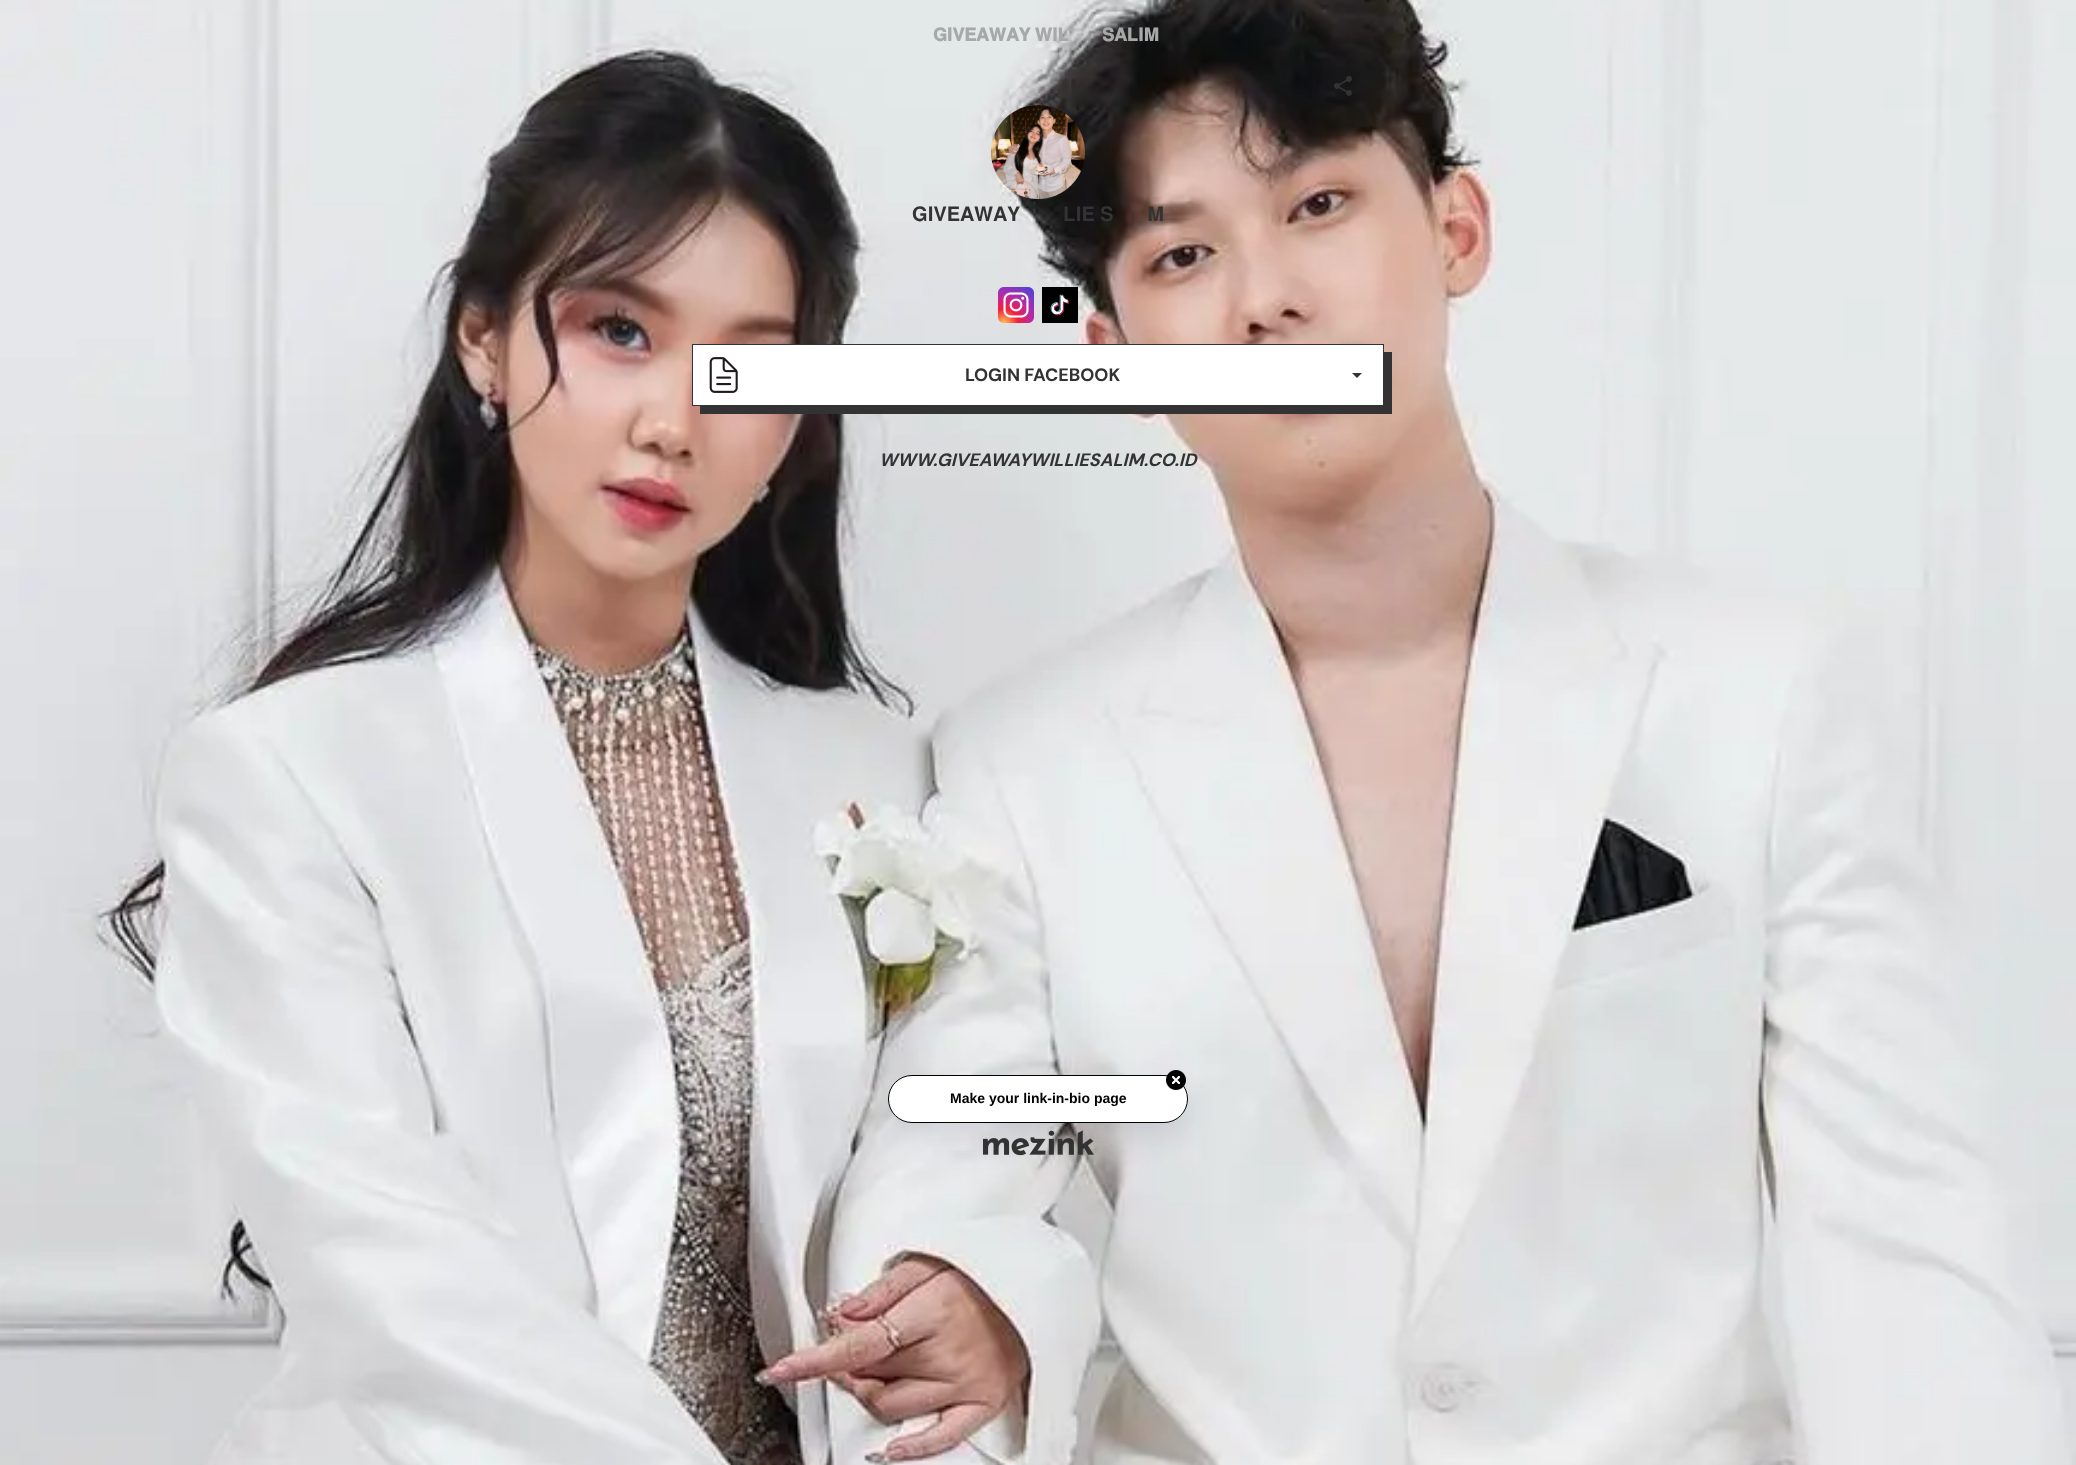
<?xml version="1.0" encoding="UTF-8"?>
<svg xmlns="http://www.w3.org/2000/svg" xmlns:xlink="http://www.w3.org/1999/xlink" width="2076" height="1465">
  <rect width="100%" height="100%" fill="#ffffff" />
  <image x="0" y="0" width="2076" height="1465" xlink:href="image1.png" />
  <image x="1334" y="76" width="18" height="20" xlink:href="image2.png" />
  <image x="991" y="105" width="94" height="94" xlink:href="image3.png" />
  <image x="998" y="287" width="36" height="36" xlink:href="image4.png" />
  <image x="1042" y="287" width="36" height="36" xlink:href="image5.png" />
  <path d="M 700 406 v 8 h 692 v -62 h -8 v 54 z" fill="#333333" />
  <rect x="692.5" y="344.5" width="691" height="61" fill="#ffffff" stroke="#333333" />
  <image x="709" y="357" width="29" height="36" xlink:href="image6.png" />
  <path d="M 1352 373 l 5 5 l 5 -5 z" fill="#333333" />
  <image x="983" y="1130" width="111" height="26" xlink:href="image8.png" />
  <rect x="888" y="1089" width="300" height="48" rx="24" fill="#191f3d" fill-opacity="0.1" filter="blur(14px)" />
  <rect x="888.5" y="1075.5" width="299" height="47" rx="23.5" fill="#ffffff" stroke="#000000" />
  <image x="1166" y="1070" width="20" height="20" xlink:href="image7.png" />
  <text x="933" y="41" style="font-family: FreeSans; font-size: 18px; font-weight: bold; fill: #a6a8a9">𝐆𝐈𝐕𝐄𝐀𝐖𝐀𝐘 𝐖𝐈𝐋</text>
  <text x="1102" y="41" style="font-family: FreeSans; font-size: 18px; font-weight: bold; fill: #a6a8a9">𝐒𝐀𝐋𝐈𝐌</text>
  <text x="912" y="221" style="font-family: FreeSans; font-size: 20px; fill: #333333">𝐆𝐈𝐕𝐄𝐀𝐖𝐀𝐘</text>
  <text x="1063" y="221" style="font-family: FreeSans; font-size: 20px; fill: #333333">𝐋𝐈𝐄 𝐒</text>
  <text x="1147" y="221" style="font-family: FreeSans; font-size: 20px; fill: #333333">𝐌</text>
  <text x="965" y="381" style="font-family: DM Sans; font-size: 18px; font-weight: bold; fill: #333333">LOGIN FACEBOOK</text>
  <text x="879" y="466" style="font-family: DM Sans; font-size: 18px; font-weight: bold; font-style: italic; fill: #333333">WWW.GIVEAWAYWILLIESALIM.CO.ID</text>
  <text x="950" y="1103" style="font-family: Arimo; font-size: 14px; font-weight: bold; fill: #000000">Make your link-in-bio page</text>
</svg>
